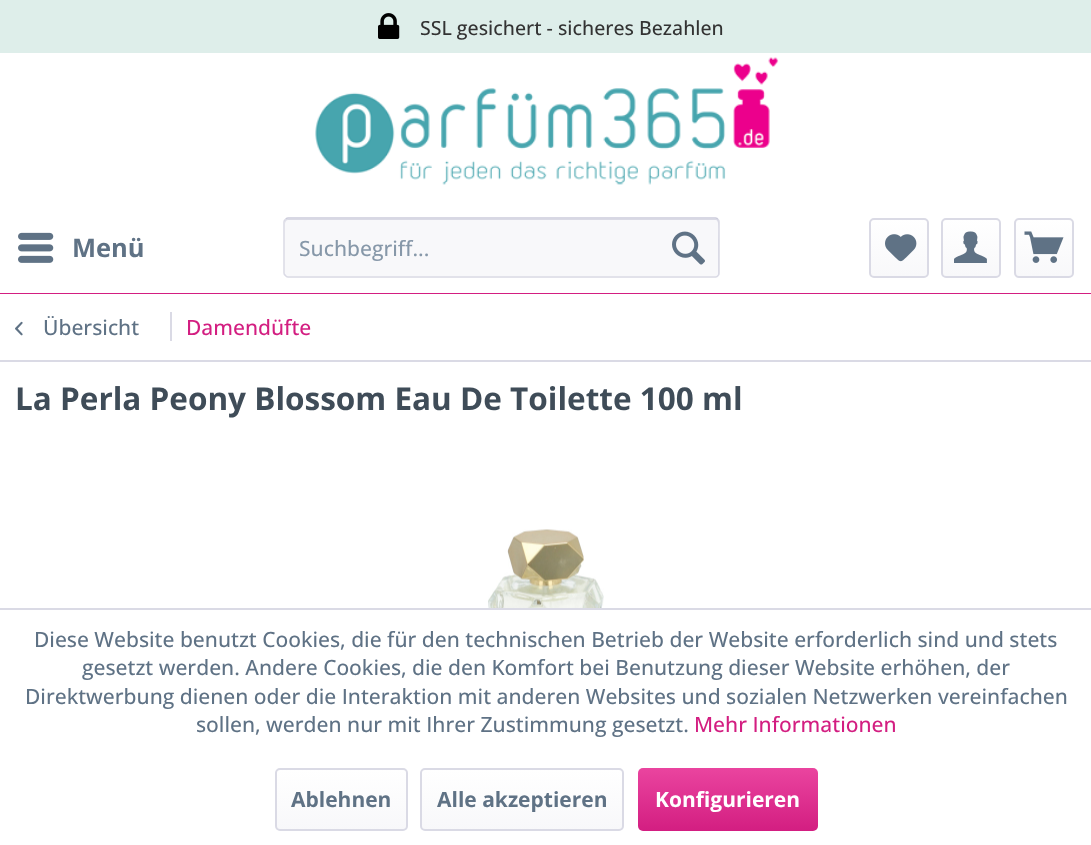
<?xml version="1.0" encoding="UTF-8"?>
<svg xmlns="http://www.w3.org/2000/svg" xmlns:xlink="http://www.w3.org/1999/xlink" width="1091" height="845">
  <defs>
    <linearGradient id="g1" gradientUnits="userSpaceOnUse" x1="899" y1="219" x2="899" y2="276"><stop offset="0" stop-color="#ffffff" /><stop offset="1" stop-color="#f8f8fa" /></linearGradient>
    <linearGradient id="g2" gradientUnits="userSpaceOnUse" x1="971" y1="219" x2="971" y2="276"><stop offset="0" stop-color="#ffffff" /><stop offset="1" stop-color="#f8f8fa" /></linearGradient>
    <linearGradient id="g3" gradientUnits="userSpaceOnUse" x1="1044" y1="219" x2="1044" y2="276"><stop offset="0" stop-color="#ffffff" /><stop offset="1" stop-color="#f8f8fa" /></linearGradient>
    <linearGradient id="g4" gradientUnits="userSpaceOnUse" x1="341" y1="770" x2="341" y2="830"><stop offset="0" stop-color="#ffffff" /><stop offset="1" stop-color="#f8f8fa" /></linearGradient>
    <linearGradient id="g5" gradientUnits="userSpaceOnUse" x1="522" y1="770" x2="522" y2="830"><stop offset="0" stop-color="#ffffff" /><stop offset="1" stop-color="#f8f8fa" /></linearGradient>
    <linearGradient id="g6" gradientUnits="userSpaceOnUse" x1="728" y1="768" x2="728" y2="831"><stop offset="0" stop-color="#ea449f" /><stop offset="1" stop-color="#d31e81" /></linearGradient>
  </defs>
  <rect width="100%" height="100%" fill="#ffffff" />
  <rect y="293" width="1091" height="1" fill="#d31e81" />
  <rect width="1091" height="53" fill="#deeeea" />
  <image x="378" y="13" width="22" height="26" xlink:href="image1.png" />
  <image x="315" y="57" width="464" height="128" xlink:href="image2.png" />
  <image x="18" y="232" width="36" height="31" xlink:href="image3.png" />
  <rect x="284" y="218" width="436" height="60" rx="5" fill="#f8f8fa" />
  <path d="M 288 220 h 428 c 4 0 2 18 2 21 v 34 c 1 0 1 -1 1 -2 v -51 c 0 -2 -1 -3 -3 -3 h -428 c -2 0 -3 1 -3 3 v 2 c 0 -2 1 -4 3 -4 z" fill="#dadae5" />
  <path d="M 285.5 219.5 c 0.5 -1 1.5 -1.5 2.5 -1.5 h 427.5 c 1 0 2 0.5 2.5 1.5" fill="none" stroke="#cbcbdb" stroke-width="1.5" />
  <path d="M 718 219.5 c 1 0.5 1 1.5 1 2.5 v 51 c 0 1 0 2 -1 2.5 c -0.5 1 -1.5 1.5 -2.5 1.5 h -427.5 c -1 0 -2 -0.5 -2.5 -1.5 c -1 -0.5 -1.5 -1.5 -1.5 -2.5 v -51 c 0 -1 0.5 -2 1.5 -2.5" fill="none" stroke="#dadae5" stroke-width="1.5" />
  <image x="672" y="231" width="33" height="34" xlink:href="image4.png" />
  <rect x="870" y="219" width="57" height="57" rx="3" fill="url(#g1)" />
  <rect x="870" y="219" width="58" height="58" rx="4" fill="none" stroke="#dadae5" stroke-width="2" />
  <image x="885" y="234" width="32" height="28" xlink:href="image5.png" />
  <rect x="942" y="219" width="57" height="57" rx="3" fill="url(#g2)" />
  <rect x="942" y="219" width="58" height="58" rx="4" fill="none" stroke="#dadae5" stroke-width="2" />
  <image x="954" y="231" width="33" height="32" xlink:href="image6.png" />
  <rect x="1016" y="219" width="57" height="57" rx="3" fill="url(#g3)" />
  <rect x="1015" y="219" width="58" height="58" rx="4" fill="none" stroke="#dadae5" stroke-width="2" />
  <image x="1024" y="231" width="40" height="32" xlink:href="image7.png" />
  <rect y="360" width="1091" height="2" fill="#dadae5" />
  <image x="15" y="321" width="8" height="15" xlink:href="image8.png" />
  <rect x="170" y="312" width="2" height="29" fill="#dadae5" />
  <image x="488" y="529" width="116" height="79" xlink:href="image9.png" />
  <rect y="608" width="1091" height="2" fill="#dadae5" />
  <rect x="276" y="770" width="131" height="60" rx="3" fill="url(#g4)" />
  <rect x="276" y="769" width="131" height="61" rx="4" fill="none" stroke="#dadae5" stroke-width="2" />
  <rect x="422" y="770" width="201" height="60" rx="3" fill="url(#g5)" />
  <rect x="421" y="769" width="202" height="61" rx="4" fill="none" stroke="#dadae5" stroke-width="2" />
  <rect x="638" y="768" width="180" height="63" rx="5" fill="url(#g6)" />
  <text x="420" y="35" style="font-family: Open Sans; font-size: 19.5px; font-weight: 500; fill: #333333">SSL gesichert - sicheres Bezahlen</text>
  <text x="72" y="257" style="font-family: Open Sans; font-size: 25.5px; font-weight: bold; fill: #5f7285">Menü</text>
  <text x="299" y="256" style="font-family: Open Sans; font-size: 21px; font-weight: 500; fill: #8798a9">Suchbegriff...</text>
  <text x="43" y="335" style="font-family: Open Sans; font-size: 21px; font-weight: 500; fill: #5f7285">Übersicht</text>
  <text x="186" y="335" style="font-family: Open Sans; font-size: 21px; font-weight: 500; fill: #d31e81">Damendüfte</text>
  <text x="15" y="410" style="font-family: Open Sans; font-size: 31.5px; font-weight: bold; fill: #3f4c58">La Perla Peony Blossom Eau De Toilette 100 ml</text>
  <text x="34" y="647" style="font-family: Open Sans; font-size: 21px; font-weight: 500; fill: #5f7285">Diese Website benutzt Cookies, die für den technischen Betrieb der Website erforderlich sind und stets</text>
  <text x="82" y="675" style="font-family: Open Sans; font-size: 21px; font-weight: 500; fill: #5f7285">gesetzt werden. Andere Cookies, die den Komfort bei Benutzung dieser Website erhöhen, der</text>
  <text x="25" y="704" style="font-family: Open Sans; font-size: 21px; font-weight: 500; fill: #5f7285">Direktwerbung dienen oder die Interaktion mit anderen Websites und sozialen Netzwerken vereinfachen</text>
  <text x="196" y="732" style="font-family: Open Sans; font-size: 21px; font-weight: 500; fill: #5f7285">sollen, werden nur mit Ihrer Zustimmung gesetzt.</text>
  <text x="694" y="732" style="font-family: Open Sans; font-size: 21px; font-weight: 500; fill: #d31e81">Mehr Informationen</text>
  <text x="291" y="807" style="font-family: Open Sans; font-size: 21px; font-weight: bold; fill: #5f7285">Ablehnen</text>
  <text x="437" y="807" style="font-family: Open Sans; font-size: 21px; font-weight: bold; fill: #5f7285">Alle akzeptieren</text>
  <text x="655" y="807" style="font-family: Open Sans; font-size: 21px; font-weight: bold; fill: #ffffff">Konfigurieren</text>
</svg>
